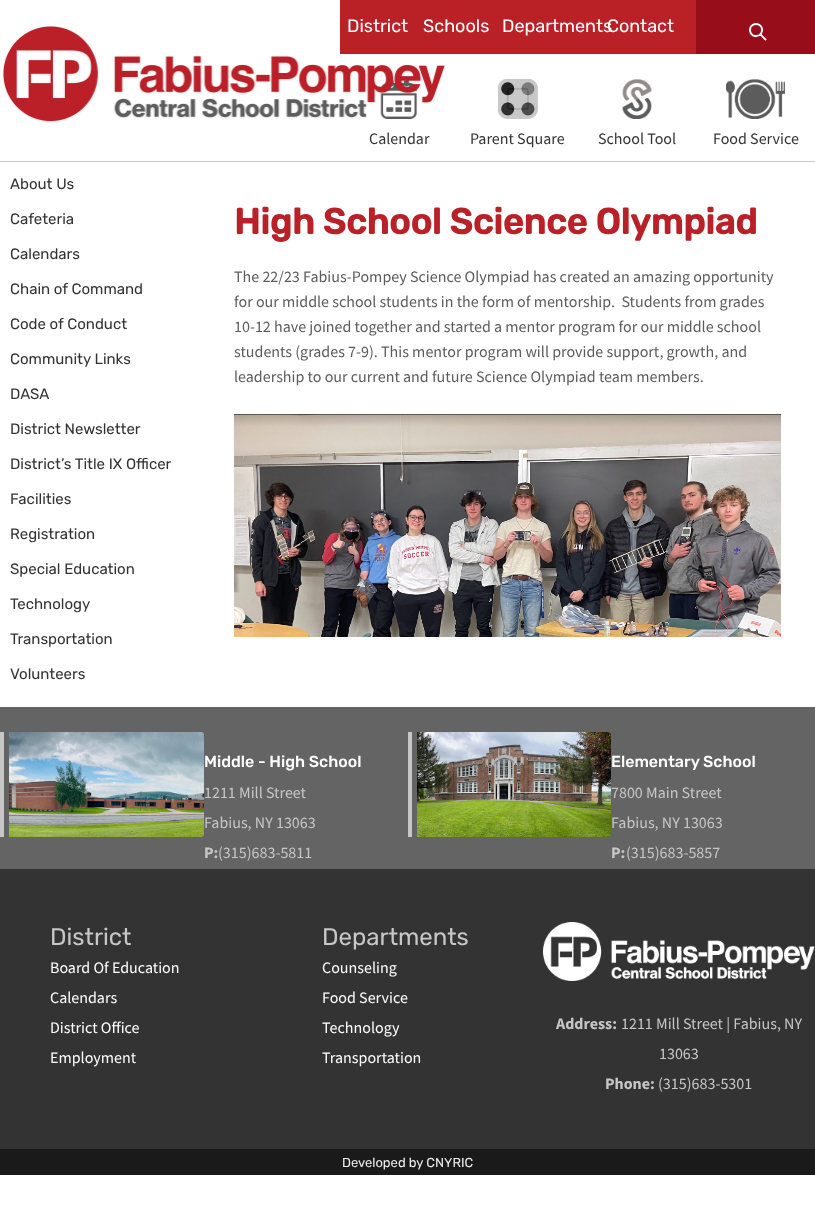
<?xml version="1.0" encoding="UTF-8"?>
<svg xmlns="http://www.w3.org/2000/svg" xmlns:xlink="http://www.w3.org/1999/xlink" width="815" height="1224">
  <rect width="100%" height="100%" fill="#ffffff" />
  <rect x="340" width="356" height="54" fill="#ba2127" />
  <image x="380" y="79" width="37" height="40" xlink:href="image3.png" />
  <image x="2" y="26" width="444" height="97" xlink:href="image1.png" />
  <rect x="696" width="119" height="54" fill="#970e1a" />
  <image x="749" y="23" width="18" height="18" xlink:href="image2.png" />
  <image x="498" y="79" width="40" height="40" xlink:href="image4.png" />
  <image x="622" y="79" width="30" height="40" xlink:href="image5.png" />
  <image x="726" y="79" width="59" height="40" xlink:href="image6.png" />
  <rect y="161" width="815" height="1" fill="#cccccc" />
  <image x="234" y="414" width="547" height="223" xlink:href="image7.png" />
  <rect y="707" width="815" height="162" fill="#646464" />
  <rect y="732" width="4" height="105" fill="#c7c7c7" />
  <image x="9" y="732" width="195" height="105" xlink:href="image8.png" />
  <rect x="408" y="732" width="4" height="105" fill="#c7c7c7" />
  <image x="417" y="732" width="194" height="105" xlink:href="image9.png" />
  <rect y="869" width="815" height="280" fill="#333333" />
  <image x="543" y="922" width="272" height="59" xlink:href="image10.png" />
  <rect y="1149" width="815" height="26" fill="#1a1a1a" />
  <text x="347" y="32" style="font-family: Rubik; font-size: 18px; fill: #ffffff">District</text>
  <text x="423" y="32" style="font-family: Rubik; font-size: 18px; fill: #ffffff">Schools</text>
  <text x="502" y="32" style="font-family: Rubik; font-size: 18px; fill: #ffffff">Departments</text>
  <text x="607" y="32" style="font-family: Rubik; font-size: 18px; fill: #ffffff">Contact</text>
  <text x="369" y="144" style="font-family: Source Sans Pro; font-size: 16px; fill: #333333">Calendar</text>
  <text x="470" y="144" style="font-family: Source Sans Pro; font-size: 16px; fill: #333333">Parent Square</text>
  <text x="598" y="144" style="font-family: Source Sans Pro; font-size: 16px; fill: #333333">School Tool</text>
  <text x="713" y="144" style="font-family: Source Sans Pro; font-size: 16px; fill: #333333">Food Service</text>
  <text x="10" y="189" style="font-family: Rubik; font-size: 15px; fill: #333333">About Us</text>
  <text x="10" y="224" style="font-family: Rubik; font-size: 15px; fill: #333333">Cafeteria</text>
  <text x="10" y="259" style="font-family: Rubik; font-size: 15px; fill: #333333">Calendars</text>
  <text x="10" y="294" style="font-family: Rubik; font-size: 15px; fill: #333333">Chain of Command</text>
  <text x="10" y="329" style="font-family: Rubik; font-size: 15px; fill: #333333">Code of Conduct</text>
  <text x="10" y="364" style="font-family: Rubik; font-size: 15px; fill: #333333">Community Links</text>
  <text x="10" y="399" style="font-family: Rubik; font-size: 15px; fill: #333333">DASA</text>
  <text x="10" y="434" style="font-family: Rubik; font-size: 15px; fill: #333333">District Newsletter</text>
  <text x="10" y="469" style="font-family: Rubik; font-size: 15px; fill: #333333">District’s Title IX Officer</text>
  <text x="10" y="504" style="font-family: Rubik; font-size: 15px; fill: #333333">Facilities</text>
  <text x="10" y="539" style="font-family: Rubik; font-size: 15px; fill: #333333">Registration</text>
  <text x="10" y="574" style="font-family: Rubik; font-size: 15px; fill: #333333">Special Education</text>
  <text x="10" y="609" style="font-family: Rubik; font-size: 15px; fill: #333333">Technology</text>
  <text x="10" y="644" style="font-family: Rubik; font-size: 15px; fill: #333333">Transportation</text>
  <text x="10" y="679" style="font-family: Rubik; font-size: 15px; fill: #333333">Volunteers</text>
  <text x="234" y="234" style="font-family: Rubik; font-size: 36px; font-weight: bold; fill: #ba2028">High School Science Olympiad</text>
  <text x="234" y="282" style="font-family: Source Sans Pro; font-size: 16px; fill: #5c5c5c">The 22/23 Fabius-Pompey Science Olympiad has created an amazing opportunity</text>
  <text x="234" y="307" style="font-family: Source Sans Pro; font-size: 16px; fill: #5c5c5c" xml:space="preserve">for our middle school students in the form of mentorship.  Students from grades</text>
  <text x="234" y="332" style="font-family: Source Sans Pro; font-size: 16px; fill: #5c5c5c">10-12 have joined together and started a mentor program for our middle school</text>
  <text x="234" y="357" style="font-family: Source Sans Pro; font-size: 16px; fill: #5c5c5c">students (grades 7-9). This mentor program will provide support, growth, and</text>
  <text x="234" y="382" style="font-family: Source Sans Pro; font-size: 16px; fill: #5c5c5c">leadership to our current and future Science Olympiad team members.</text>
  <text x="204" y="767" style="font-family: Rubik; font-size: 16px; font-weight: 500; fill: #ffffff">Middle - High School</text>
  <text x="204" y="798" style="font-family: Source Sans Pro; font-size: 16px; fill: #c7c7c7">1211 Mill Street</text>
  <text x="204" y="828" style="font-family: Source Sans Pro; font-size: 16px; fill: #c7c7c7">Fabius, NY 13063</text>
  <text x="204" y="858" style="font-family: Source Sans Pro; font-size: 16px; font-weight: bold; fill: #c7c7c7">P:</text>
  <text x="218" y="858" style="font-family: Source Sans Pro; font-size: 16px; fill: #c7c7c7">(315)683-5811</text>
  <text x="611" y="767" style="font-family: Rubik; font-size: 16px; font-weight: 500; fill: #ffffff">Elementary School</text>
  <text x="611" y="798" style="font-family: Source Sans Pro; font-size: 16px; fill: #c7c7c7">7800 Main Street</text>
  <text x="611" y="828" style="font-family: Source Sans Pro; font-size: 16px; fill: #c7c7c7">Fabius, NY 13063</text>
  <text x="611" y="858" style="font-family: Source Sans Pro; font-size: 16px; font-weight: bold; fill: #c7c7c7">P:</text>
  <text x="626" y="858" style="font-family: Source Sans Pro; font-size: 16px; fill: #c7c7c7">(315)683-5857</text>
  <text x="50" y="945" style="font-family: Rubik; font-size: 24px; fill: #c7c7c7">District</text>
  <text x="50" y="973" style="font-family: Source Sans Pro; font-size: 16px; fill: #ffffff">Board Of Education</text>
  <text x="50" y="1003" style="font-family: Source Sans Pro; font-size: 16px; fill: #ffffff">Calendars</text>
  <text x="50" y="1033" style="font-family: Source Sans Pro; font-size: 16px; fill: #ffffff">District Office</text>
  <text x="50" y="1063" style="font-family: Source Sans Pro; font-size: 16px; fill: #ffffff">Employment</text>
  <text x="322" y="945" style="font-family: Rubik; font-size: 24px; fill: #c7c7c7">Departments</text>
  <text x="322" y="973" style="font-family: Source Sans Pro; font-size: 16px; fill: #ffffff">Counseling</text>
  <text x="322" y="1003" style="font-family: Source Sans Pro; font-size: 16px; fill: #ffffff">Food Service</text>
  <text x="322" y="1033" style="font-family: Source Sans Pro; font-size: 16px; fill: #ffffff">Technology</text>
  <text x="322" y="1063" style="font-family: Source Sans Pro; font-size: 16px; fill: #ffffff">Transportation</text>
  <text x="556" y="1029" style="font-family: Source Sans Pro; font-size: 16px; font-weight: bold; fill: #c7c7c7">Address:</text>
  <text x="621" y="1029" style="font-family: Source Sans Pro; font-size: 16px; fill: #c7c7c7">1211 Mill Street | Fabius, NY</text>
  <text x="659" y="1059" style="font-family: Source Sans Pro; font-size: 16px; fill: #c7c7c7">13063</text>
  <text x="605" y="1089" style="font-family: Source Sans Pro; font-size: 16px; font-weight: bold; fill: #c7c7c7">Phone:</text>
  <text x="658" y="1089" style="font-family: Source Sans Pro; font-size: 16px; fill: #c7c7c7">(315)683-5301</text>
  <text x="342" y="1167" style="font-family: Rubik; font-size: 13px; fill: #eeeeee">Developed by CNYRIC</text>
</svg>
